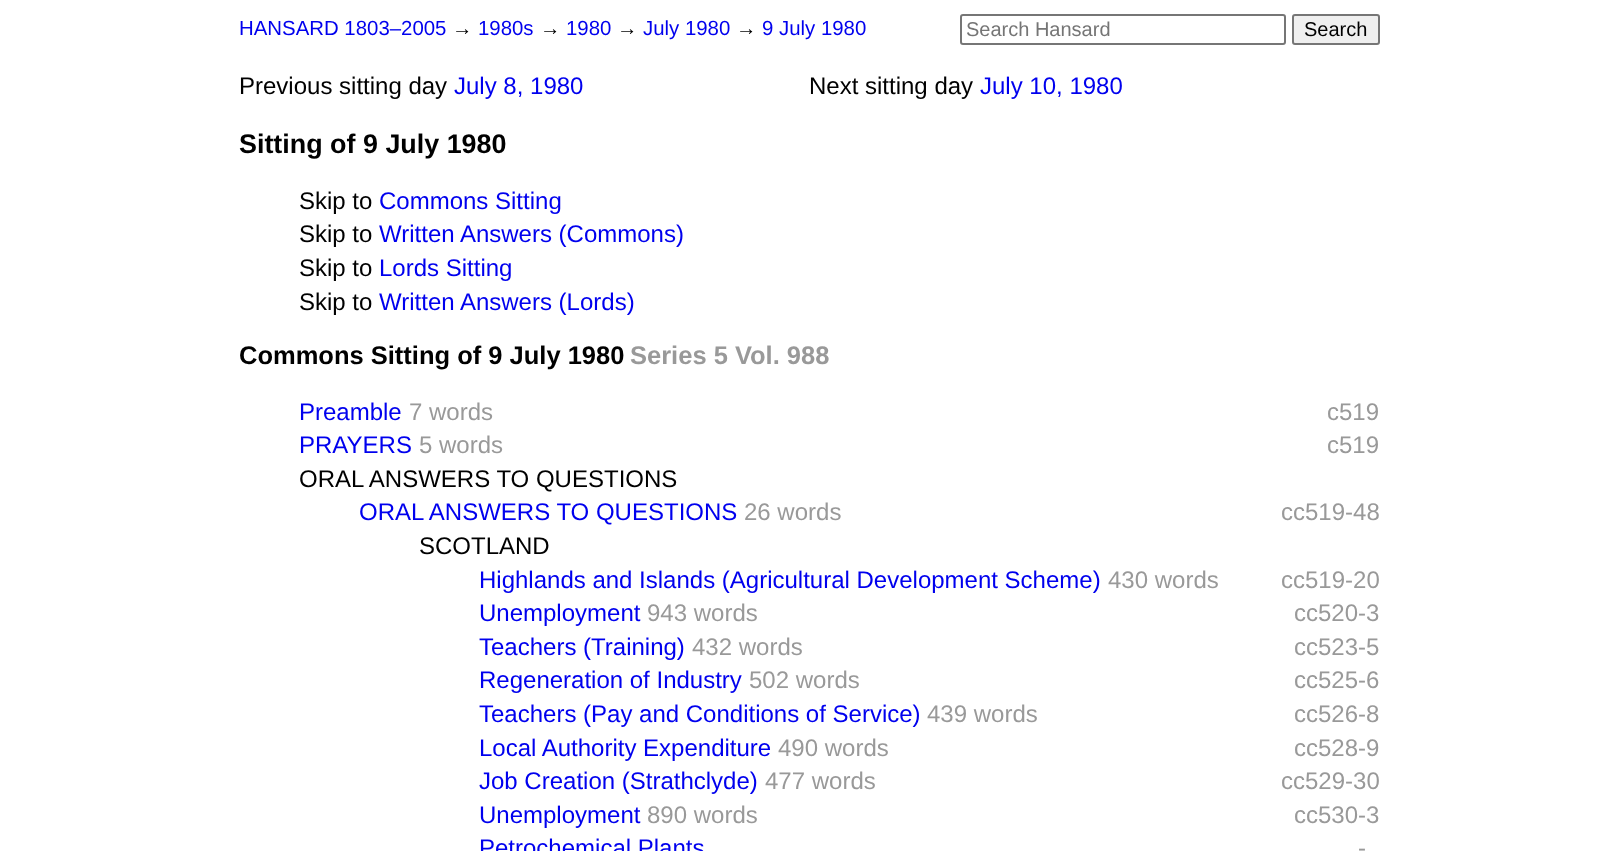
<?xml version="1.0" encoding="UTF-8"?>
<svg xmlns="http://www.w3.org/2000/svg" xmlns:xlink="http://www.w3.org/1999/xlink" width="1618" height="851">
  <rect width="100%" height="100%" fill="#ffffff" />
  <rect x="961" y="15" width="324" height="29" rx="2" fill="none" stroke="#767676" stroke-width="2" />
  <rect x="1293" y="15" width="86" height="29" rx="2" fill="#efefef" stroke="#767676" stroke-width="2" />
  <text x="239" y="35" style="font-family: Liberation Sans; font-size: 20.4px; fill: #0000ee">HANSARD 1803–2005</text>
  <text x="452" y="35" style="font-family: Liberation Sans; font-size: 20.4px; fill: #000000">→</text>
  <text x="478" y="35" style="font-family: Liberation Sans; font-size: 20.4px; fill: #0000ee">1980s</text>
  <text x="540" y="35" style="font-family: Liberation Sans; font-size: 20.4px; fill: #000000">→</text>
  <text x="566" y="35" style="font-family: Liberation Sans; font-size: 20.4px; fill: #0000ee">1980</text>
  <text x="617" y="35" style="font-family: Liberation Sans; font-size: 20.4px; fill: #000000">→</text>
  <text x="643" y="35" style="font-family: Liberation Sans; font-size: 20.4px; fill: #0000ee">July 1980</text>
  <text x="736" y="35" style="font-family: Liberation Sans; font-size: 20.4px; fill: #000000">→</text>
  <text x="762" y="35" style="font-family: Liberation Sans; font-size: 20.4px; fill: #0000ee">9 July 1980</text>
  <text x="966" y="36" style="font-family: Liberation Sans; font-size: 20px; fill: #757575">Search Hansard</text>
  <text x="1304" y="36" style="font-family: Liberation Sans; font-size: 20px; fill: #000000">Search</text>
  <text x="239" y="94" style="font-family: Liberation Sans; font-size: 24px; fill: #000000">Previous sitting day</text>
  <text x="454" y="94" style="font-family: Liberation Sans; font-size: 24px; fill: #0000ee">July 8, 1980</text>
  <text x="809" y="94" style="font-family: Liberation Sans; font-size: 24px; fill: #000000">Next sitting day</text>
  <text x="980" y="94" style="font-family: Liberation Sans; font-size: 24px; fill: #0000ee">July 10, 1980</text>
  <text x="239" y="153" style="font-family: Liberation Sans; font-size: 26.9px; font-weight: bold; fill: #000000">Sitting of 9 July 1980</text>
  <text x="299" y="209" style="font-family: Liberation Sans; font-size: 24px; fill: #000000">Skip to</text>
  <text x="379" y="209" style="font-family: Liberation Sans; font-size: 24px; fill: #0000ee">Commons Sitting</text>
  <text x="299" y="242" style="font-family: Liberation Sans; font-size: 24px; fill: #000000">Skip to</text>
  <text x="379" y="242" style="font-family: Liberation Sans; font-size: 24px; fill: #0000ee">Written Answers (Commons)</text>
  <text x="299" y="276" style="font-family: Liberation Sans; font-size: 24px; fill: #000000">Skip to</text>
  <text x="379" y="276" style="font-family: Liberation Sans; font-size: 24px; fill: #0000ee">Lords Sitting</text>
  <text x="299" y="310" style="font-family: Liberation Sans; font-size: 24px; fill: #000000">Skip to</text>
  <text x="379" y="310" style="font-family: Liberation Sans; font-size: 24px; fill: #0000ee">Written Answers (Lords)</text>
  <text x="239" y="364" style="font-family: Liberation Sans; font-size: 25.5px; font-weight: bold; fill: #000000">Commons Sitting of 9 July 1980</text>
  <text x="630" y="364" style="font-family: Liberation Sans; font-size: 25.5px; font-weight: bold; fill: #999999">Series 5 Vol. 988</text>
  <text x="299" y="420" style="font-family: Liberation Sans; font-size: 24px; fill: #0000ee">Preamble</text>
  <text x="409" y="420" style="font-family: Liberation Sans; font-size: 24px; fill: #999999">7 words</text>
  <text x="1327" y="420" style="font-family: Liberation Sans; font-size: 24px; fill: #999999">c519</text>
  <text x="299" y="453" style="font-family: Liberation Sans; font-size: 24px; fill: #0000ee">PRAYERS</text>
  <text x="419" y="453" style="font-family: Liberation Sans; font-size: 24px; fill: #999999">5 words</text>
  <text x="1327" y="453" style="font-family: Liberation Sans; font-size: 24px; fill: #999999">c519</text>
  <text x="299" y="487" style="font-family: Liberation Sans; font-size: 24px; fill: #000000">ORAL ANSWERS TO QUESTIONS</text>
  <text x="359" y="520" style="font-family: Liberation Sans; font-size: 24px; fill: #0000ee">ORAL ANSWERS TO QUESTIONS</text>
  <text x="744" y="520" style="font-family: Liberation Sans; font-size: 24px; fill: #999999">26 words</text>
  <text x="1281" y="520" style="font-family: Liberation Sans; font-size: 24px; fill: #999999">cc519-48</text>
  <text x="419" y="554" style="font-family: Liberation Sans; font-size: 24px; fill: #000000">SCOTLAND</text>
  <text x="479" y="588" style="font-family: Liberation Sans; font-size: 24px; fill: #0000ee">Highlands and Islands (Agricultural Development Scheme)</text>
  <text x="1108" y="588" style="font-family: Liberation Sans; font-size: 24px; fill: #999999">430 words</text>
  <text x="1281" y="588" style="font-family: Liberation Sans; font-size: 24px; fill: #999999">cc519-20</text>
  <text x="479" y="621" style="font-family: Liberation Sans; font-size: 24px; fill: #0000ee">Unemployment</text>
  <text x="647" y="621" style="font-family: Liberation Sans; font-size: 24px; fill: #999999">943 words</text>
  <text x="1294" y="621" style="font-family: Liberation Sans; font-size: 24px; fill: #999999">cc520-3</text>
  <text x="479" y="655" style="font-family: Liberation Sans; font-size: 24px; fill: #0000ee">Teachers (Training)</text>
  <text x="692" y="655" style="font-family: Liberation Sans; font-size: 24px; fill: #999999">432 words</text>
  <text x="1294" y="655" style="font-family: Liberation Sans; font-size: 24px; fill: #999999">cc523-5</text>
  <text x="479" y="688" style="font-family: Liberation Sans; font-size: 24px; fill: #0000ee">Regeneration of Industry</text>
  <text x="749" y="688" style="font-family: Liberation Sans; font-size: 24px; fill: #999999">502 words</text>
  <text x="1294" y="688" style="font-family: Liberation Sans; font-size: 24px; fill: #999999">cc525-6</text>
  <text x="479" y="722" style="font-family: Liberation Sans; font-size: 24px; fill: #0000ee">Teachers (Pay and Conditions of Service)</text>
  <text x="927" y="722" style="font-family: Liberation Sans; font-size: 24px; fill: #999999">439 words</text>
  <text x="1294" y="722" style="font-family: Liberation Sans; font-size: 24px; fill: #999999">cc526-8</text>
  <text x="479" y="756" style="font-family: Liberation Sans; font-size: 24px; fill: #0000ee">Local Authority Expenditure</text>
  <text x="778" y="756" style="font-family: Liberation Sans; font-size: 24px; fill: #999999">490 words</text>
  <text x="1294" y="756" style="font-family: Liberation Sans; font-size: 24px; fill: #999999">cc528-9</text>
  <text x="479" y="789" style="font-family: Liberation Sans; font-size: 24px; fill: #0000ee">Job Creation (Strathclyde)</text>
  <text x="765" y="789" style="font-family: Liberation Sans; font-size: 24px; fill: #999999">477 words</text>
  <text x="1281" y="789" style="font-family: Liberation Sans; font-size: 24px; fill: #999999">cc529-30</text>
  <text x="479" y="823" style="font-family: Liberation Sans; font-size: 24px; fill: #0000ee">Unemployment</text>
  <text x="647" y="823" style="font-family: Liberation Sans; font-size: 24px; fill: #999999">890 words</text>
  <text x="1294" y="823" style="font-family: Liberation Sans; font-size: 24px; fill: #999999">cc530-3</text>
  <text x="479" y="856" style="font-family: Liberation Sans; font-size: 24px; fill: #0000ee">Petrochemical Plants</text>
  <text x="1358" y="856" style="font-family: Liberation Sans; font-size: 24px; fill: #999999">-</text>
</svg>
